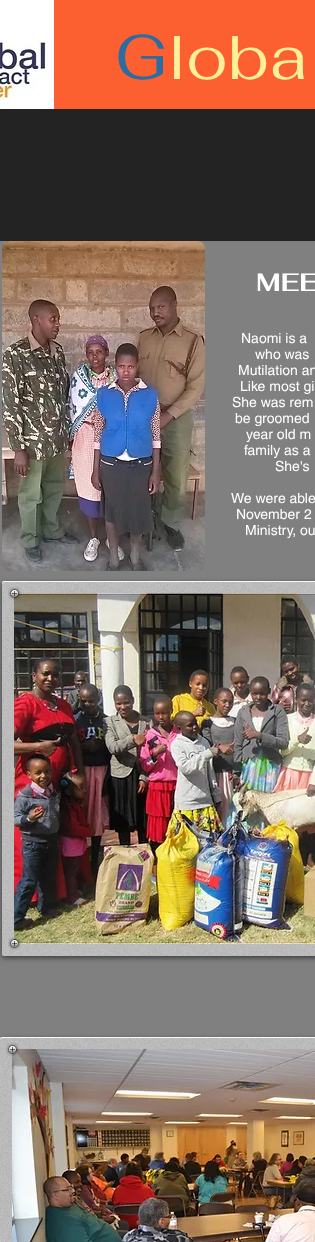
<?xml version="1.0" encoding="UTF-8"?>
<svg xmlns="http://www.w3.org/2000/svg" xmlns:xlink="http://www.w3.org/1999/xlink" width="315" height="1242">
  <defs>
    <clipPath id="clip1"><path d="M 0 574 h 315 v 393 h -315 z m 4 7 h 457 c 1 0 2 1 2 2 v 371 c 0 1 -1 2 -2 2 h -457 c -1 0 -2 -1 -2 -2 v -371 c 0 -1 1 -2 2 -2 z" clip-rule="evenodd" /></clipPath>
  </defs>
  <rect width="100%" height="100%" fill="#fd6030" />
  <image x="0" y="0" width="54" height="109" xlink:href="image1.png" />
  <rect y="109" width="315" height="132" fill="#232323" />
  <rect y="241" width="315" height="798" fill="#808080" />
  <image x="2" y="241" width="203" height="330" xlink:href="image2.png" />
  <g clip-path="url(#clip1)">
    <rect x="2" y="583" width="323" height="375" rx="2" fill="#000000" fill-opacity="0.53" filter="blur(2.5px)" />
  </g>
  <rect x="2" y="581" width="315" height="375" rx="2" fill="#ffffff" fill-opacity="0.5" />
  <image x="2" y="581" width="313" height="375" xlink:href="image3.png" />
  <path d="M 4 582 c -1 0 -2 1 -2 2 c 0 -1 0 -3 2 -3 h 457 l 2 1 v 2 c 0 -1 -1 -2 -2 -2 z" fill="#ffffff" fill-opacity="0.92" />
  <image x="14" y="593" width="301" height="351" xlink:href="image5.png" />
  <image x="8" y="587" width="13" height="13" xlink:href="image4.png" />
  <image x="8" y="937" width="13" height="13" xlink:href="image6.png" />
  <rect y="1039" width="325" height="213" rx="2" fill="#000000" fill-opacity="0.53" filter="blur(2.5px)" />
  <rect y="1037" width="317" height="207" rx="2" fill="#bfbfbf" />
  <image x="0" y="1037" width="315" height="205" xlink:href="image7.png" />
  <path d="M 2 1038 c -1 0 -2 1 -2 2 c 0 -1 0 -3 2 -3 h 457 l 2 1 v 2 c 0 -1 -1 -2 -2 -2 z" fill="#ffffff" fill-opacity="0.92" />
  <image x="12" y="1049" width="303" height="193" xlink:href="image9.png" />
  <image x="6" y="1043" width="13" height="13" xlink:href="image8.png" />
  <text x="115" y="79" style="font-family: Fahkwang; font-size: 63px; fill: #2b6ca3">G</text>
  <text x="168" y="79" style="font-family: Fahkwang; font-size: 63px; fill: #ffef98">loba</text>
  <text x="256" y="291" style="font-family: Fahkwang; font-size: 25px; font-weight: bold; fill: #ffffff">MEE</text>
  <text x="241" y="343" style="font-family: helvetica; font-size: 14px; fill: #ffffff">Naomi is a</text>
  <text x="255" y="359" style="font-family: helvetica; font-size: 14px; fill: #ffffff">who was</text>
  <text x="238" y="375" style="font-family: helvetica; font-size: 14px; fill: #ffffff">Mutilation an</text>
  <text x="240" y="391" style="font-family: helvetica; font-size: 14px; fill: #ffffff">Like most gi</text>
  <text x="232" y="407" style="font-family: helvetica; font-size: 14px; fill: #ffffff">She was rem</text>
  <text x="235" y="423" style="font-family: helvetica; font-size: 14px; fill: #ffffff">be groomed</text>
  <text x="246" y="439" style="font-family: helvetica; font-size: 14px; fill: #ffffff">year old m</text>
  <text x="244" y="455" style="font-family: helvetica; font-size: 14px; fill: #ffffff">family as a</text>
  <text x="275" y="471" style="font-family: helvetica; font-size: 14px; fill: #ffffff">She's</text>
  <text x="231" y="503" style="font-family: helvetica; font-size: 14px; fill: #ffffff">We were able</text>
  <text x="236" y="519" style="font-family: helvetica; font-size: 14px; fill: #ffffff">November 2</text>
  <text x="245" y="535" style="font-family: helvetica; font-size: 14px; fill: #ffffff">Ministry, ou</text>
</svg>
